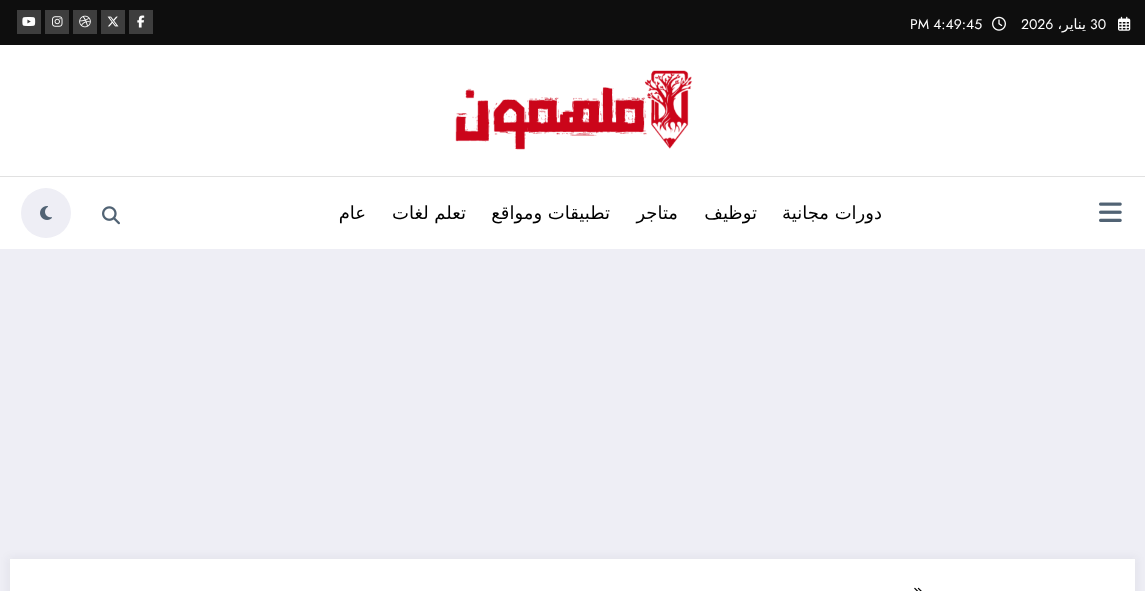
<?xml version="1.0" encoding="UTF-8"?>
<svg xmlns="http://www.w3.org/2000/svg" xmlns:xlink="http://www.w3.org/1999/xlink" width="1145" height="591">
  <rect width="100%" height="100%" fill="#eeeef5" />
  <rect width="1145" height="45" fill="#0e0e0e" />
  <image x="1118" y="16" width="13" height="15" xlink:href="image1.png" />
  <image x="992" y="16" width="14" height="15" xlink:href="image2.png" />
  <rect x="129" y="10" width="24" height="24" fill="#3e3e3e" />
  <image x="137" y="15" width="8" height="13" xlink:href="image3.png" />
  <rect x="101" y="10" width="24" height="24" fill="#3e3e3e" />
  <image x="107" y="16" width="12" height="11" xlink:href="image4.png" />
  <rect x="73" y="10" width="24" height="24" fill="#3e3e3e" />
  <image x="79" y="15" width="12" height="13" xlink:href="image5.png" />
  <rect x="45" y="10" width="24" height="24" fill="#3e3e3e" />
  <image x="52" y="16" width="11" height="11" xlink:href="image6.png" />
  <rect x="17" y="10" width="24" height="24" fill="#3e3e3e" />
  <image x="22" y="17" width="14" height="9" xlink:href="image7.png" />
  <rect y="45" width="1145" height="204" fill="#ffffff" />
  <image x="455" y="70" width="238" height="80" xlink:href="image8.png" />
  <rect y="176" width="1145" height="1" fill="#e1e1e1" />
  <image x="1099" y="202" width="23" height="20" xlink:href="image9.png" />
  <image x="102" y="206" width="18" height="19" xlink:href="image10.png" />
  <circle cx="46" cy="213" r="25" fill="#eeeef5" />
  <image x="40" y="206" width="12" height="14" xlink:href="image11.png" />
  <rect x="8" y="557" width="1129" height="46" fill="#171723" fill-opacity="0.05" filter="blur(4px)" />
  <rect x="10" y="559" width="1125" height="32" fill="#ffffff" />
  <image x="914" y="587" width="8" height="4" xlink:href="image12.png" />
  <text x="1090" y="29" style="font-family: Jost; font-size: 14px; fill: #ffffff">30</text>
  <text x="1086" y="29" style="font-family: DejaVu Sans; font-size: 14px; direction: rtl; fill: #ffffff">يناير،</text>
  <text x="1021" y="29" style="font-family: Jost; font-size: 14px; fill: #ffffff">2026</text>
  <text x="910" y="29" style="font-family: Jost; font-size: 14px; fill: #ffffff">PM 4:49:45</text>
  <text x="882" y="219" style="font-family: DejaVu Sans; font-size: 18px; direction: rtl; fill: #000000">دورات مجانية</text>
  <text x="757" y="219" style="font-family: DejaVu Sans; font-size: 18px; direction: rtl; fill: #000000">توظيف</text>
  <text x="678" y="219" style="font-family: DejaVu Sans; font-size: 18px; direction: rtl; fill: #000000">متاجر</text>
  <text x="610" y="219" style="font-family: DejaVu Sans; font-size: 18px; direction: rtl; fill: #000000">تطبيقات ومواقع</text>
  <text x="466" y="219" style="font-family: DejaVu Sans; font-size: 18px; direction: rtl; fill: #000000">تعلم لغات</text>
  <text x="366" y="219" style="font-family: DejaVu Sans; font-size: 18px; direction: rtl; fill: #000000">عام</text>
</svg>
